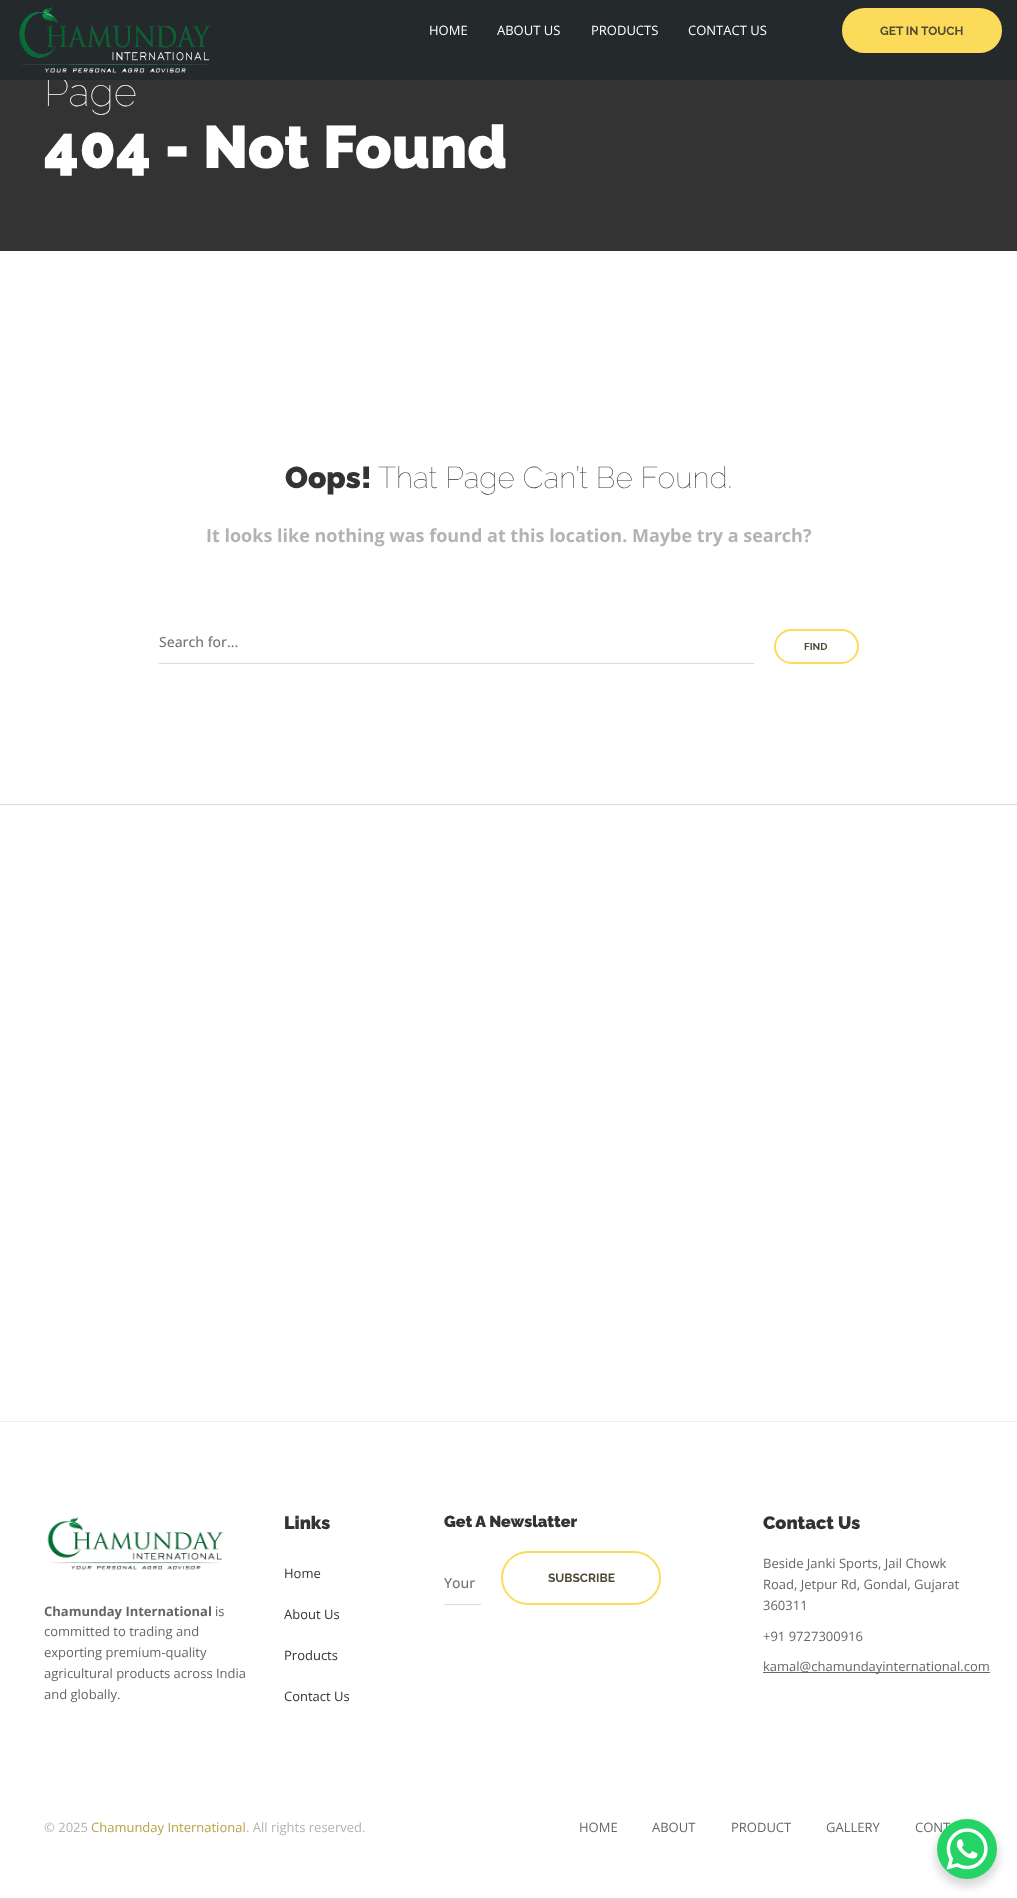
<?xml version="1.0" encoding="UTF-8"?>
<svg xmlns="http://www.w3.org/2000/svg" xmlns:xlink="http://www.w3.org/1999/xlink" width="1017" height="1899">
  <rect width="100%" height="100%" fill="#ffffff" />
  <rect y="1898" width="1017" height="1" fill="#dadada" />
  <rect y="80" width="1017" height="171" fill="#333333" />
  <rect y="804" width="1017" height="1" fill="#dadada" />
  <rect x="159" y="663" width="595" height="1" fill="#dadada" />
  <rect x="775" y="630" width="83" height="33" rx="16.5" fill="none" stroke="#fcdb5a" stroke-width="2" />
  <rect y="1421" width="1017" height="1" fill="#eeeeee" />
  <image x="47" y="1517" width="177" height="53" xlink:href="image2.png" />
  <rect x="444" y="1604" width="37" height="1" fill="#dadada" />
  <rect x="502" y="1552" width="158" height="52" rx="26" fill="none" stroke="#fcdb5a" stroke-width="2" />
  <rect x="763" y="1672" width="227" height="1" fill="#666666" />
  <rect x="935" y="1823" width="64" height="64" rx="32" fill="#000000" fill-opacity="0.15" filter="blur(4px)" />
  <text x="44" y="106" style="font-family: Raleway; font-size: 40px; font-weight: 100; fill: #ffffff">Page</text>
  <rect width="1017" height="80" fill="#24292c" />
  <image x="19" y="7" width="192" height="66" xlink:href="image1.png" />
  <rect x="843" y="9" width="158" height="43" rx="21.5" fill="#fcdb5a" stroke="#fcdb5a" stroke-width="2" />
  <text x="880" y="35" style="font-family: Raleway; font-size: 12px; font-weight: bold; fill: #4f4a37">GET IN TOUCH</text>
  <text x="688" y="35" style="font-family: Open Sans; font-size: 13px; fill: #ffffff">CONTACT US</text>
  <text x="591" y="35" style="font-family: Open Sans; font-size: 13px; fill: #ffffff">PRODUCTS</text>
  <text x="497" y="35" style="font-family: Open Sans; font-size: 13px; fill: #ffffff">ABOUT US</text>
  <text x="429" y="35" style="font-family: Open Sans; font-size: 13px; fill: #ffffff">HOME</text>
  <text x="44" y="168" style="font-family: Raleway; font-size: 60px; font-weight: 900; fill: #ffffff">404 - Not Found</text>
  <text x="285" y="488" style="font-family: Raleway; font-size: 30px; font-weight: 900; fill: #333333">Oops!</text>
  <text x="378" y="488" style="font-family: Raleway; font-size: 30px; font-weight: 100; fill: #333333">That Page Can’t Be Found.</text>
  <text x="206" y="542" style="font-family: Open Sans; font-size: 18px; font-weight: bold; fill: #b3b3b3">It looks like nothing was found at this location. Maybe try a search?</text>
  <text x="159" y="647" style="font-family: Open Sans; font-size: 14px; font-weight: 500; fill: #757575">Search for...</text>
  <text x="804" y="650" style="font-family: Raleway; font-size: 10px; font-weight: bold; fill: #4f4a37">FIND</text>
  <text x="44" y="1616" style="font-family: Open Sans; font-size: 13px; font-weight: bold; fill: #666666">Chamunday International</text>
  <text x="215" y="1616" style="font-family: Open Sans; font-size: 13px; fill: #666666">is</text>
  <text x="44" y="1636" style="font-family: Open Sans; font-size: 13px; fill: #666666">committed to trading and</text>
  <text x="44" y="1657" style="font-family: Open Sans; font-size: 13px; fill: #666666">exporting premium-quality</text>
  <text x="44" y="1678" style="font-family: Open Sans; font-size: 13px; fill: #666666">agricultural products across India</text>
  <text x="44" y="1699" style="font-family: Open Sans; font-size: 13px; fill: #666666">and globally.</text>
  <text x="284" y="1529" style="font-family: Raleway; font-size: 18px; font-weight: 900; fill: #333333">Links</text>
  <text x="284" y="1578" style="font-family: Open Sans; font-size: 13px; fill: #333333">Home</text>
  <text x="284" y="1619" style="font-family: Open Sans; font-size: 13px; fill: #333333">About Us</text>
  <text x="284" y="1660" style="font-family: Open Sans; font-size: 13px; fill: #333333">Products</text>
  <text x="284" y="1701" style="font-family: Open Sans; font-size: 13px; fill: #333333">Contact Us</text>
  <text x="444" y="1527" style="font-family: Raleway; font-size: 16px; font-weight: 900; fill: #333333">Get A Newslatter</text>
  <text x="444" y="1588" style="font-family: Open Sans; font-size: 14px; font-weight: 500; fill: #757575">Your</text>
  <text x="548" y="1582" style="font-family: Raleway; font-size: 12px; font-weight: bold; fill: #4f4a37">SUBSCRIBE</text>
  <text x="763" y="1529" style="font-family: Raleway; font-size: 18px; font-weight: 900; fill: #333333">Contact Us</text>
  <text x="763" y="1568" style="font-family: Open Sans; font-size: 13px; fill: #666666">Beside Janki Sports, Jail Chowk</text>
  <text x="763" y="1589" style="font-family: Open Sans; font-size: 13px; fill: #666666">Road, Jetpur Rd, Gondal, Gujarat</text>
  <text x="763" y="1610" style="font-family: Open Sans; font-size: 13px; fill: #666666">360311</text>
  <text x="763" y="1641" style="font-family: Open Sans; font-size: 13px; fill: #666666">+91 9727300916</text>
  <text x="763" y="1671" style="font-family: Open Sans; font-size: 13px; fill: #666666">kamal@chamundayinternational.com</text>
  <text x="44" y="1832" style="font-family: Open Sans; font-size: 13px; fill: #b3b3b3">© 2025</text>
  <text x="91" y="1832" style="font-family: Open Sans; font-size: 13px; fill: #baa245">Chamunday International</text>
  <text x="246" y="1832" style="font-family: Open Sans; font-size: 13px; fill: #b3b3b3">. All rights reserved.</text>
  <text x="579" y="1832" style="font-family: Open Sans; font-size: 13px; fill: #666666">HOME</text>
  <text x="652" y="1832" style="font-family: Open Sans; font-size: 13px; fill: #666666">ABOUT</text>
  <text x="731" y="1832" style="font-family: Open Sans; font-size: 13px; fill: #666666">PRODUCT</text>
  <text x="826" y="1832" style="font-family: Open Sans; font-size: 13px; fill: #666666">GALLERY</text>
  <text x="915" y="1832" style="font-family: Open Sans; font-size: 13px; fill: #666666">CONT</text>
  <circle cx="967" cy="1849" r="30" fill="#25d366" />
  <image x="946" y="1828" width="42" height="42" xlink:href="image3.png" />
</svg>
